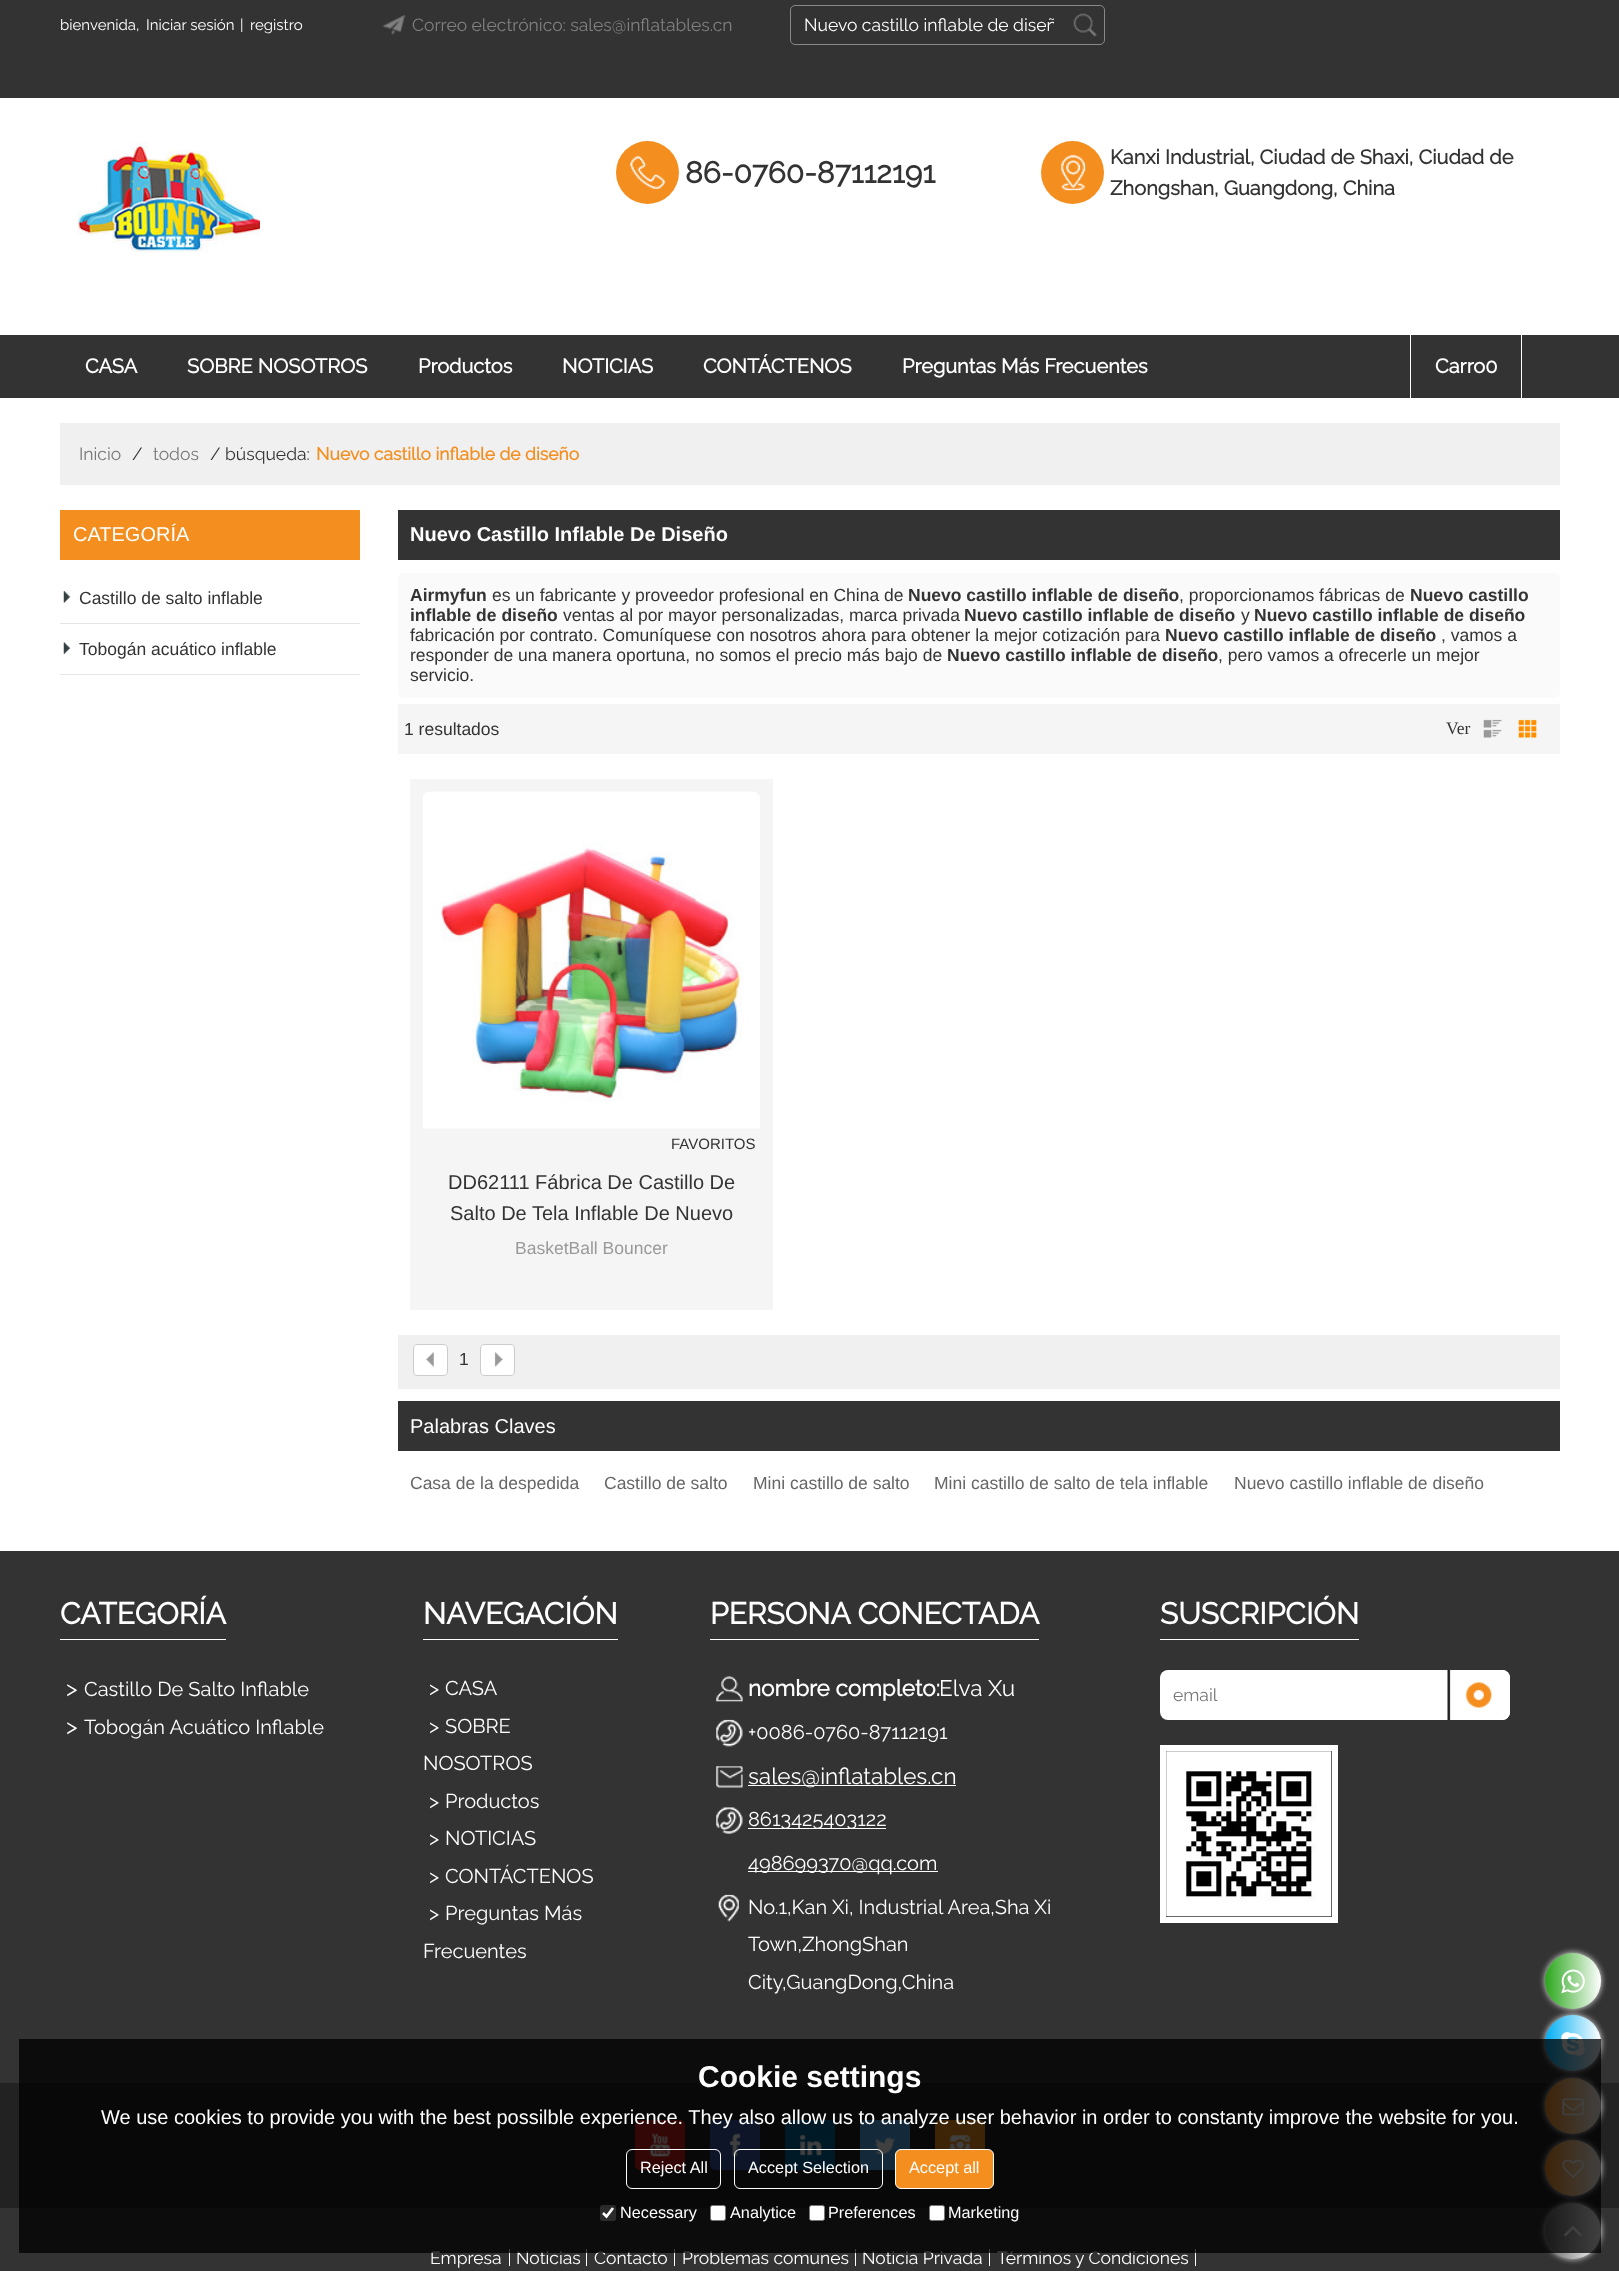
<?xml version="1.0" encoding="UTF-8"?>
<svg xmlns="http://www.w3.org/2000/svg" xmlns:xlink="http://www.w3.org/1999/xlink" width="1619" height="2271">
  <defs>
    <linearGradient id="g1" gradientUnits="userSpaceOnUse" x1="1545" y1="1981" x2="1601" y2="1981"><stop offset="0" stop-color="#29a61a" /><stop offset="1" stop-color="#ffffff" /></linearGradient>
    <linearGradient id="g2" gradientUnits="userSpaceOnUse" x1="1545" y1="2043" x2="1601" y2="2043"><stop offset="0" stop-color="#01aef3" /><stop offset="1" stop-color="#ffffff" /></linearGradient>
    <linearGradient id="g3" gradientUnits="userSpaceOnUse" x1="1545" y1="2106" x2="1601" y2="2106"><stop offset="0" stop-color="#f48e1f" /><stop offset="1" stop-color="#ffffff" /></linearGradient>
    <linearGradient id="g4" gradientUnits="userSpaceOnUse" x1="1545" y1="2168" x2="1601" y2="2168"><stop offset="0" stop-color="#f48e1f" /><stop offset="1" stop-color="#ffffff" /></linearGradient>
    <linearGradient id="g5" gradientUnits="userSpaceOnUse" x1="1545" y1="2231" x2="1601" y2="2231"><stop offset="0" stop-color="#666666" /><stop offset="1" stop-color="#ffffff" /></linearGradient>
    <clipPath id="clip1"><rect x="804" y="6" width="250" height="38" /></clipPath>
  </defs>
  <rect width="100%" height="100%" fill="#ffffff" />
  <rect width="1619" height="98" fill="#333333" />
  <image x="382" y="15" width="24" height="20" xlink:href="image1.png" />
  <rect x="790.5" y="5.5" width="314" height="39" rx="4.5" fill="none" stroke="#888888" />
  <image x="1073" y="13" width="24" height="24" xlink:href="image2.png" />
  <image x="77" y="142" width="183" height="111" xlink:href="image3.png" />
  <circle cx="647.5" cy="172.5" r="31.5" fill="#f48e1f" />
  <image x="629" y="156" width="37" height="33" xlink:href="image4.png" />
  <circle cx="1072.5" cy="172.5" r="31.5" fill="#f48e1f" />
  <image x="1061" y="154" width="25" height="37" xlink:href="image5.png" />
  <rect y="335" width="1619" height="63" fill="#333333" />
  <rect x="1521" y="335" width="1" height="63" fill="#ffffff" />
  <rect x="1410" y="335" width="1" height="63" fill="#ffffff" />
  <rect x="60" y="423" width="1500" height="62" fill="#f0f0f0" />
  <rect x="60" y="510" width="300" height="50" fill="#f48e1f" />
  <rect x="60" y="623" width="300" height="1" fill="#e5e5e5" />
  <image x="63" y="591" width="8" height="12" xlink:href="image6.png" />
  <rect x="60" y="674" width="300" height="1" fill="#e5e5e5" />
  <image x="63" y="642" width="8" height="12" xlink:href="image7.png" />
  <rect x="398" y="510" width="1162" height="50" fill="#333333" />
  <rect x="398" y="573" width="1162" height="125" rx="5" fill="#fafafa" />
  <rect x="398" y="704" width="1162" height="50" fill="#f5f5f5" />
  <image x="1483" y="719" width="19" height="19" xlink:href="image8.png" />
  <image x="1518" y="719" width="19" height="19" xlink:href="image9.png" />
  <rect x="410" y="779" width="363" height="531" fill="#f5f5f5" />
  <image x="423" y="791" width="337" height="338" xlink:href="image10.png" />
  <rect x="398" y="1335" width="1162" height="54" fill="#f0f0f0" />
  <rect x="413" y="1344" width="35" height="32" rx="4" fill="#ffffff" />
  <image x="426" y="1352" width="8" height="25" xlink:href="image11.png" />
  <rect x="413.5" y="1344.5" width="34" height="31" rx="3.5" fill="none" stroke="#cccccc" />
  <rect x="480" y="1344" width="35" height="32" rx="4" fill="#ffffff" />
  <image x="494" y="1352" width="9" height="25" xlink:href="image12.png" />
  <rect x="480.5" y="1344.5" width="34" height="31" rx="3.5" fill="none" stroke="#cccccc" />
  <rect x="398" y="1401" width="1162" height="50" fill="#333333" />
  <rect y="1551" width="1619" height="532" fill="#333333" />
  <rect x="60" y="1639" width="166" height="1" fill="#ffffff" />
  <rect x="423" y="1639" width="195" height="1" fill="#ffffff" />
  <rect x="710" y="1639" width="329" height="1" fill="#ffffff" />
  <image x="716" y="1676" width="27" height="26" xlink:href="image13.png" />
  <image x="716" y="1719" width="27" height="28" xlink:href="image14.png" />
  <image x="716" y="1766" width="27" height="22" xlink:href="image15.png" />
  <rect x="748" y="1785" width="208" height="1" fill="#ffffff" />
  <image x="716" y="1807" width="27" height="27" xlink:href="image16.png" />
  <rect x="748" y="1828" width="138" height="1" fill="#ffffff" />
  <rect x="748" y="1871" width="190" height="1" fill="#ffffff" />
  <image x="718" y="1894" width="21" height="28" xlink:href="image17.png" />
  <rect x="1160" y="1639" width="199" height="1" fill="#ffffff" />
  <rect x="1160" y="1670" width="350" height="50" rx="8" fill="#ffffff" />
  <path d="M 1448 1670 h 54 c 4.5 0 8 3.5 8 8 v 34 c 0 4.5 -3.5 8 -8 8 h -54 z" fill="#ffffff" />
  <image x="1447" y="1670" width="45" height="50" xlink:href="image18.png" />
  <rect x="1163" y="1748" width="172" height="172" fill="none" stroke="#ffffff" stroke-width="6" />
  <image x="1166" y="1751" width="166" height="166" xlink:href="image19.png" />
  <rect y="2083" width="1619" height="125" fill="#222222" />
  <rect x="635" y="2120" width="50" height="50" rx="5" fill="#ce1e1e" />
  <image x="649" y="2133" width="22" height="24" xlink:href="image20.png" />
  <rect x="710" y="2120" width="50" height="50" rx="5" fill="#3b559f" />
  <image x="729" y="2133" width="12" height="24" xlink:href="image21.png" />
  <rect x="785" y="2120" width="50" height="50" rx="5" fill="#006399" />
  <image x="799" y="2134" width="23" height="22" xlink:href="image22.png" />
  <rect x="860" y="2120" width="50" height="50" rx="5" fill="#50a6e7" />
  <image x="875" y="2137" width="21" height="17" xlink:href="image23.png" />
  <rect x="935" y="2120" width="50" height="50" rx="5" fill="#f48e1f" />
  <image x="949" y="2134" width="22" height="15" xlink:href="image24.png" />
  <rect y="2208" width="1619" height="63" fill="#333333" />
  <rect x="509" y="2249" width="1" height="17" fill="#ffffff" />
  <rect x="586" y="2249" width="1" height="17" fill="#ffffff" />
  <rect x="674" y="2249" width="1" height="17" fill="#ffffff" />
  <rect x="855" y="2249" width="1" height="17" fill="#ffffff" />
  <rect x="989" y="2249" width="1" height="17" fill="#ffffff" />
  <rect x="1195" y="2249" width="1" height="17" fill="#ffffff" />
  <rect x="1545" y="1953" width="56" height="56" rx="28" fill="#eeeeee" filter="blur(3px)" />
  <circle cx="1573" cy="1981" r="28" fill="url(#g1)" />
  <image x="1561" y="1969" width="24" height="25" xlink:href="image25.png" />
  <rect x="1545" y="2015" width="56" height="56" rx="28" fill="#eeeeee" filter="blur(3px)" />
  <circle cx="1573" cy="2043" r="28" fill="url(#g2)" />
  <image x="1561" y="2032" width="24" height="24" xlink:href="image26.png" />
  <rect x="1545" y="2078" width="56" height="56" rx="28" fill="#eeeeee" filter="blur(3px)" />
  <circle cx="1573" cy="2106" r="28" fill="url(#g3)" />
  <image x="1562" y="2098" width="22" height="18" xlink:href="image27.png" />
  <rect x="1545" y="2140" width="56" height="56" rx="28" fill="#eeeeee" filter="blur(3px)" />
  <circle cx="1573" cy="2168" r="28" fill="url(#g4)" />
  <image x="1562" y="2159" width="22" height="19" xlink:href="image28.png" />
  <rect x="1545" y="2203" width="56" height="56" rx="28" fill="#eeeeee" filter="blur(3px)" />
  <circle cx="1573" cy="2231" r="28" fill="url(#g5)" />
  <image x="1564" y="2226" width="18" height="11" xlink:href="image29.png" />
  <text x="60" y="30" style="font-family: Raleway; font-size: 15px; font-weight: 100; fill: #ffffff">bienvenida,</text>
  <text x="146" y="30" style="font-family: Raleway; font-size: 15px; font-weight: 100; fill: #ffffff">Iniciar sesión</text>
  <text x="240" y="30" style="font-family: Raleway; font-size: 15px; font-weight: 100; fill: #ffffff">|</text>
  <text x="250" y="30" style="font-family: Raleway; font-size: 15px; font-weight: 100; fill: #ffffff">registro</text>
  <text x="412" y="31" style="font-family: Raleway; font-size: 17.5px; font-weight: 100; fill: #808080">Correo electrónico: sales@inflatables.cn</text>
  <g clip-path="url(#clip1)">
    <text x="804" y="31" style="font-family: Raleway; font-size: 17.5px; font-weight: 100; fill: #ffffff">Nuevo castillo inflable de diseñ</text>
  </g>
  <text x="685" y="183" style="font-family: Raleway; font-size: 30px; font-weight: bold; fill: #333333">86-0760-87112191</text>
  <text x="1110" y="164" style="font-family: Raleway; font-size: 20px; font-weight: bold; fill: #333333">Kanxi Industrial, Ciudad de Shaxi, Ciudad de</text>
  <text x="1110" y="195" style="font-family: Raleway; font-size: 20px; font-weight: bold; fill: #333333">Zhongshan, Guangdong, China</text>
  <text x="85" y="373" style="font-family: Raleway; font-size: 20px; font-weight: bold; fill: #ffffff">CASA</text>
  <text x="187" y="373" style="font-family: Raleway; font-size: 20px; font-weight: bold; fill: #ffffff">SOBRE NOSOTROS</text>
  <text x="418" y="373" style="font-family: Raleway; font-size: 20px; font-weight: bold; fill: #ffffff">Productos</text>
  <text x="562" y="373" style="font-family: Raleway; font-size: 20px; font-weight: bold; fill: #ffffff">NOTICIAS</text>
  <text x="703" y="373" style="font-family: Raleway; font-size: 20px; font-weight: bold; fill: #ffffff">CONTÁCTENOS</text>
  <text x="902" y="373" style="font-family: Raleway; font-size: 20px; font-weight: bold; fill: #ffffff">Preguntas Más Frecuentes</text>
  <text x="1435" y="373" style="font-family: Raleway; font-size: 20px; font-weight: bold; fill: #ffffff">Carro0</text>
  <text x="79" y="460" style="font-family: Raleway; font-size: 17.5px; font-weight: 100; fill: #777777">Inicio</text>
  <text x="132" y="460" style="font-family: Raleway; font-size: 17.5px; font-weight: 100; fill: #333333">/</text>
  <text x="153" y="460" style="font-family: Raleway; font-size: 17.5px; font-weight: 100; fill: #777777">todos</text>
  <text x="210" y="460" style="font-family: Raleway; font-size: 17.5px; font-weight: 100; fill: #333333">/ búsqueda:</text>
  <text x="316" y="460" style="font-family: Raleway; font-size: 17.5px; font-weight: bold; fill: #f48e1f">Nuevo castillo inflable de diseño</text>
  <text x="73" y="541" style="font-family: Liberation Sans; font-size: 20px; fill: #ffffff">CATEGORÍA</text>
  <text x="79" y="604" style="font-family: Liberation Sans; font-size: 17.5px; fill: #333333">Castillo de salto inflable</text>
  <text x="79" y="655" style="font-family: Liberation Sans; font-size: 17.5px; fill: #333333">Tobogán acuático inflable</text>
  <text x="410" y="541" style="font-family: Liberation Sans; font-size: 20px; font-weight: bold; fill: #ffffff">Nuevo Castillo Inflable De Diseño</text>
  <text x="410" y="601" style="font-family: Liberation Sans; font-size: 17.5px; font-weight: bold; fill: #333333">Airmyfun</text>
  <text x="492" y="601" style="font-family: Liberation Sans; font-size: 17.5px; fill: #333333">es un fabricante y proveedor profesional en China de</text>
  <text x="908" y="601" style="font-family: Liberation Sans; font-size: 17.5px; font-weight: bold; fill: #333333">Nuevo castillo inflable de diseño</text>
  <text x="1179" y="601" style="font-family: Liberation Sans; font-size: 17.5px; fill: #333333">, proporcionamos fábricas de</text>
  <text x="1410" y="601" style="font-family: Liberation Sans; font-size: 17.5px; font-weight: bold; fill: #333333">Nuevo castillo</text>
  <text x="410" y="621" style="font-family: Liberation Sans; font-size: 17.5px; font-weight: bold; fill: #333333">inflable de diseño</text>
  <text x="563" y="621" style="font-family: Liberation Sans; font-size: 17.5px; fill: #333333">ventas al por mayor personalizadas, marca privada</text>
  <text x="964" y="621" style="font-family: Liberation Sans; font-size: 17.5px; font-weight: bold; fill: #333333">Nuevo castillo inflable de diseño</text>
  <text x="1241" y="621" style="font-family: Liberation Sans; font-size: 17.5px; fill: #333333">y</text>
  <text x="1254" y="621" style="font-family: Liberation Sans; font-size: 17.5px; font-weight: bold; fill: #333333">Nuevo castillo inflable de diseño</text>
  <text x="410" y="641" style="font-family: Liberation Sans; font-size: 17.5px; fill: #333333">fabricación por contrato. Comuníquese con nosotros ahora para obtener la mejor cotización para</text>
  <text x="1165" y="641" style="font-family: Liberation Sans; font-size: 17.5px; font-weight: bold; fill: #333333">Nuevo castillo inflable de diseño</text>
  <text x="1441" y="641" style="font-family: Liberation Sans; font-size: 17.5px; fill: #333333">, vamos a</text>
  <text x="410" y="661" style="font-family: Liberation Sans; font-size: 17.5px; fill: #333333">responder de una manera oportuna, no somos el precio más bajo de</text>
  <text x="947" y="661" style="font-family: Liberation Sans; font-size: 17.5px; font-weight: bold; fill: #333333">Nuevo castillo inflable de diseño</text>
  <text x="1218" y="661" style="font-family: Liberation Sans; font-size: 17.5px; fill: #333333">, pero vamos a ofrecerle un mejor</text>
  <text x="410" y="681" style="font-family: Liberation Sans; font-size: 17.5px; fill: #333333">servicio.</text>
  <text x="404" y="735" style="font-family: Liberation Sans; font-size: 17.5px; fill: #333333">1 resultados</text>
  <text x="1446" y="734" style="font-family: Liberation Serif; font-size: 17.5px; fill: #333333">Ver</text>
  <text x="671" y="1149" style="font-family: Liberation Sans; font-size: 15px; fill: #333333">FAVORITOS</text>
  <text x="448" y="1189" style="font-family: Liberation Sans; font-size: 20px; fill: #333333">DD62111 Fábrica De Castillo De</text>
  <text x="450" y="1220" style="font-family: Liberation Sans; font-size: 20px; fill: #333333">Salto De Tela Inflable De Nuevo</text>
  <text x="515" y="1254" style="font-family: Liberation Sans; font-size: 17.5px; fill: #999999">BasketBall Bouncer</text>
  <text x="459" y="1365" style="font-family: Liberation Sans; font-size: 17.5px; fill: #333333">1</text>
  <text x="410" y="1433" style="font-family: Liberation Sans; font-size: 20px; fill: #ffffff">Palabras Claves</text>
  <text x="410" y="1489" style="font-family: Liberation Sans; font-size: 17.5px; fill: #666666">Casa de la despedida</text>
  <text x="604" y="1489" style="font-family: Liberation Sans; font-size: 17.5px; fill: #666666">Castillo de salto</text>
  <text x="753" y="1489" style="font-family: Liberation Sans; font-size: 17.5px; fill: #666666">Mini castillo de salto</text>
  <text x="934" y="1489" style="font-family: Liberation Sans; font-size: 17.5px; fill: #666666">Mini castillo de salto de tela inflable</text>
  <text x="1234" y="1489" style="font-family: Liberation Sans; font-size: 17.5px; fill: #666666">Nuevo castillo inflable de diseño</text>
  <text x="60" y="1624" style="font-family: Raleway; font-size: 30px; font-weight: bold; fill: #ffffff">CATEGORÍA</text>
  <text x="66" y="1696" style="font-family: Raleway; font-size: 22.5px; font-weight: 100; fill: #ffffff">&gt;</text>
  <text x="84" y="1696" style="font-family: Raleway; font-size: 20px; font-weight: 100; fill: #ffffff">Castillo De Salto Inflable</text>
  <text x="66" y="1734" style="font-family: Raleway; font-size: 22.5px; font-weight: 100; fill: #ffffff">&gt;</text>
  <text x="84" y="1734" style="font-family: Raleway; font-size: 20px; font-weight: 100; fill: #ffffff">Tobogán Acuático Inflable</text>
  <text x="423" y="1624" style="font-family: Raleway; font-size: 30px; font-weight: bold; fill: #ffffff">NAVEGACIÓN</text>
  <text x="429" y="1695" style="font-family: Raleway; font-size: 20px; font-weight: 100; fill: #ffffff">&gt;</text>
  <text x="445" y="1695" style="font-family: Raleway; font-size: 20px; font-weight: 100; fill: #ffffff">CASA</text>
  <text x="429" y="1733" style="font-family: Raleway; font-size: 20px; font-weight: 100; fill: #ffffff">&gt;</text>
  <text x="445" y="1733" style="font-family: Raleway; font-size: 20px; font-weight: 100; fill: #ffffff">SOBRE</text>
  <text x="423" y="1770" style="font-family: Raleway; font-size: 20px; font-weight: 100; fill: #ffffff">NOSOTROS</text>
  <text x="429" y="1808" style="font-family: Raleway; font-size: 20px; font-weight: 100; fill: #ffffff">&gt;</text>
  <text x="445" y="1808" style="font-family: Raleway; font-size: 20px; font-weight: 100; fill: #ffffff">Productos</text>
  <text x="429" y="1845" style="font-family: Raleway; font-size: 20px; font-weight: 100; fill: #ffffff">&gt;</text>
  <text x="445" y="1845" style="font-family: Raleway; font-size: 20px; font-weight: 100; fill: #ffffff">NOTICIAS</text>
  <text x="429" y="1883" style="font-family: Raleway; font-size: 20px; font-weight: 100; fill: #ffffff">&gt;</text>
  <text x="445" y="1883" style="font-family: Raleway; font-size: 20px; font-weight: 100; fill: #ffffff">CONTÁCTENOS</text>
  <text x="429" y="1920" style="font-family: Raleway; font-size: 20px; font-weight: 100; fill: #ffffff">&gt;</text>
  <text x="445" y="1920" style="font-family: Raleway; font-size: 20px; font-weight: 100; fill: #ffffff">Preguntas Más</text>
  <text x="423" y="1958" style="font-family: Raleway; font-size: 20px; font-weight: 100; fill: #ffffff">Frecuentes</text>
  <text x="710" y="1624" style="font-family: Raleway; font-size: 30px; font-weight: bold; fill: #ffffff">PERSONA CONECTADA</text>
  <text x="748" y="1696" style="font-family: Raleway; font-size: 22.5px; font-weight: bold; fill: #ffffff">nombre completo:</text>
  <text x="939" y="1696" style="font-family: Raleway; font-size: 22.5px; font-weight: 100; fill: #ffffff">Elva Xu</text>
  <text x="748" y="1739" style="font-family: Raleway; font-size: 20px; font-weight: 100; fill: #ffffff">+0086-0760-87112191</text>
  <text x="748" y="1784" style="font-family: Raleway; font-size: 22.5px; font-weight: 100; fill: #ffffff">sales@inflatables.cn</text>
  <text x="748" y="1826" style="font-family: Raleway; font-size: 20px; font-weight: 100; fill: #ffffff">8613425403122</text>
  <text x="748" y="1870" style="font-family: Raleway; font-size: 20px; font-weight: 100; fill: #ffffff">498699370@qq.com</text>
  <text x="748" y="1914" style="font-family: Raleway; font-size: 20px; font-weight: 100; fill: #ffffff">No.1,Kan Xi, Industrial Area,Sha Xi</text>
  <text x="748" y="1951" style="font-family: Raleway; font-size: 20px; font-weight: 100; fill: #ffffff">Town,ZhongShan</text>
  <text x="748" y="1989" style="font-family: Raleway; font-size: 20px; font-weight: 100; fill: #ffffff">City,GuangDong,China</text>
  <text x="1160" y="1624" style="font-family: Raleway; font-size: 30px; font-weight: bold; fill: #ffffff">SUSCRIPCIÓN</text>
  <text x="1173" y="1701" style="font-family: Raleway; font-size: 17.5px; font-weight: 100; fill: #777777">email</text>
  <text x="430" y="2264" style="font-family: Raleway; font-size: 17.5px; font-weight: 100; fill: #ffffff">Empresa</text>
  <text x="516" y="2264" style="font-family: Raleway; font-size: 17.5px; font-weight: 100; fill: #ffffff">Noticias</text>
  <text x="594" y="2264" style="font-family: Raleway; font-size: 17.5px; font-weight: 100; fill: #ffffff">Contacto</text>
  <text x="682" y="2264" style="font-family: Raleway; font-size: 17.5px; font-weight: 100; fill: #ffffff">Problemas comunes</text>
  <text x="862" y="2264" style="font-family: Raleway; font-size: 17.5px; font-weight: 100; fill: #ffffff">Noticia Privada</text>
  <text x="997" y="2264" style="font-family: Raleway; font-size: 17.5px; font-weight: 100; fill: #ffffff">Términos y Condiciones</text>
  <rect x="19" y="2039" width="1582" height="214" fill="#000000" fill-opacity="0.75" />
  <text x="698" y="2087" style="font-family: Liberation Sans; font-size: 30px; font-weight: bold; fill: #ffffff">Cookie settings</text>
  <text x="101" y="2124" style="font-family: Liberation Sans; font-size: 20px; fill: #ffffff">We use cookies to provide you with the best possilble experience. They also allow us to analyze user behavior in order to constanty improve the website for you.</text>
  <rect x="626.5" y="2149.5" width="94" height="39" rx="5.5" fill="none" stroke="#ffffff" />
  <text x="640" y="2173" style="font-family: Liberation Sans; font-size: 16.25px; fill: #ffffff">Reject All</text>
  <rect x="734.5" y="2149.5" width="148" height="39" rx="5.5" fill="none" stroke="#ffffff" />
  <text x="748" y="2173" style="font-family: Liberation Sans; font-size: 16.25px; fill: #ffffff">Accept Selection</text>
  <rect x="895.5" y="2149.5" width="98" height="39" rx="5.5" fill="#f48e1f" stroke="#ffffff" />
  <text x="909" y="2173" style="font-family: Liberation Sans; font-size: 16.25px; fill: #ffffff">Accept all</text>
  <rect x="600" y="2205" width="16" height="16" rx="2.5" fill="#767676" fill-opacity="0.3" />
  <path d="M 603 2213 l 3.5 3.5 l 6.5 -8.5" fill="none" stroke="#ffffff" stroke-width="2.6" />
  <text x="620" y="2218" style="font-family: Liberation Sans; font-size: 16.25px; fill: #ffffff">Necessary</text>
  <rect x="710.5" y="2205.5" width="15" height="15" rx="2" fill="#ffffff" stroke="#767676" />
  <text x="730" y="2218" style="font-family: Liberation Sans; font-size: 16.25px; fill: #ffffff">Analytice</text>
  <rect x="809.5" y="2205.5" width="15" height="15" rx="2" fill="#ffffff" stroke="#767676" />
  <text x="828" y="2218" style="font-family: Liberation Sans; font-size: 16.25px; fill: #ffffff">Preferences</text>
  <rect x="929.5" y="2205.5" width="15" height="15" rx="2" fill="#ffffff" stroke="#767676" />
  <text x="948" y="2218" style="font-family: Liberation Sans; font-size: 16.25px; fill: #ffffff">Marketing</text>
</svg>
